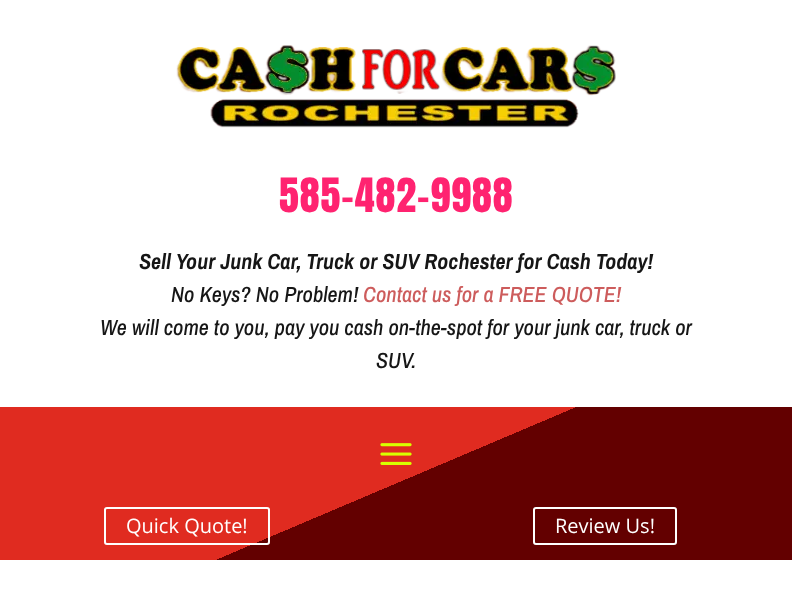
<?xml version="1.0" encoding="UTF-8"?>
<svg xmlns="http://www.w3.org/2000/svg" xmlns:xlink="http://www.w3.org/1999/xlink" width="792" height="592">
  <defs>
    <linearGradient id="g1" gradientUnits="userSpaceOnUse" x1="308" y1="276" x2="484" y2="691"><stop offset="0.5" stop-color="#e02b20" /><stop offset="0.5" stop-color="#630000" /></linearGradient>
  </defs>
  <rect width="100%" height="100%" fill="#ffffff" />
  <image x="176" y="45" width="440" height="83" xlink:href="image1.png" />
  <rect y="407" width="792" height="153" fill="url(#g1)" />
  <image x="380" y="443" width="32" height="22" xlink:href="image2.png" />
  <rect x="105" y="508" width="164" height="36" rx="2" fill="none" stroke="#ffffff" stroke-width="2" />
  <rect x="534" y="508" width="142" height="36" rx="2" fill="none" stroke="#ffffff" stroke-width="2" />
  <text x="279" y="212" style="font-family: Anton; font-size: 40px; letter-spacing: 1px; fill: #ff2370">585-482-9988</text>
  <text x="139" y="269" style="font-family: Archivo Narrow; font-size: 22px; font-weight: bold; font-style: italic; fill: #161616">Sell Your Junk Car, Truck or SUV Rochester for Cash Today!</text>
  <text x="171" y="302" style="font-family: Archivo Narrow; font-size: 22px; font-weight: 500; font-style: italic; fill: #161616">No Keys? No Problem!</text>
  <text x="363" y="302" style="font-family: Archivo Narrow; font-size: 22px; font-weight: 500; font-style: italic; fill: #cd5c5c">Contact us for a FREE QUOTE!</text>
  <text x="100" y="335" style="font-family: Archivo Narrow; font-size: 22px; font-weight: 500; font-style: italic; fill: #161616">We will come to you, pay you cash on-the-spot for your junk car, truck or</text>
  <text x="376" y="368" style="font-family: Archivo Narrow; font-size: 22px; font-weight: 500; font-style: italic; fill: #161616">SUV.</text>
  <text x="126" y="533" style="font-family: Open Sans; font-size: 20px; fill: #ffffff">Quick Quote!</text>
  <text x="555" y="533" style="font-family: Open Sans; font-size: 20px; fill: #ffffff">Review Us!</text>
</svg>
